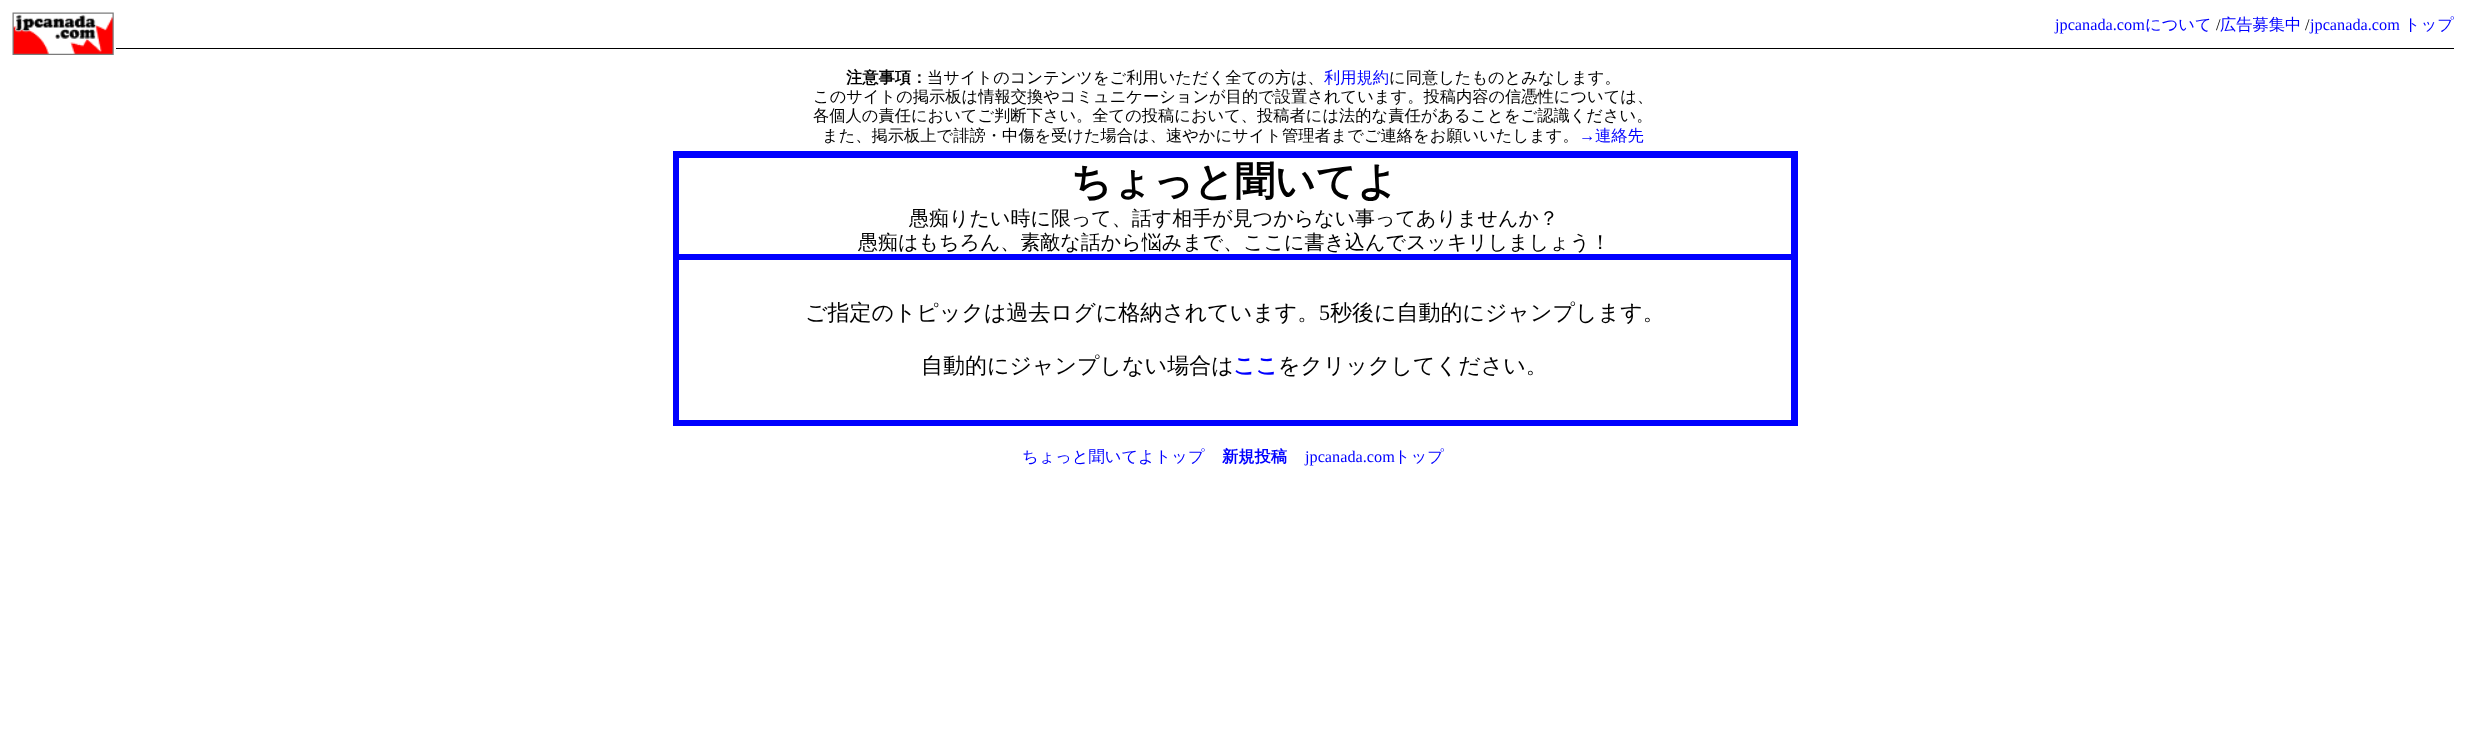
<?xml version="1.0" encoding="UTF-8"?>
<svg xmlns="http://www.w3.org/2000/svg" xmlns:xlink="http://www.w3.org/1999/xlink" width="2466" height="734">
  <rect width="100%" height="100%" fill="#ffffff" />
  <rect x="116" y="48" width="2338" height="1" fill="#000000" />
  <image x="12" y="12" width="102" height="43" xlink:href="image1.png" />
  <rect x="673" y="151" width="1125" height="7" fill="#0000ff" />
  <rect x="673" y="254" width="1125" height="6" fill="#0000ff" />
  <rect x="1791" y="254" width="7" height="172" fill="#0000ff" />
  <rect x="1791" y="151" width="7" height="109" fill="#0000ff" />
  <rect x="673" y="420" width="1125" height="6" fill="#0000ff" />
  <rect x="673" y="254" width="6" height="172" fill="#0000ff" />
  <rect x="673" y="151" width="6" height="109" fill="#0000ff" />
  <text x="2055" y="30" style="font-family: Liberation Serif; font-size: 16.25px; fill: #0000ff">jpcanada.com</text>
  <text x="2145" y="30" style="font-family: WenQuanYi Zen Hei; font-size: 16.25px; font-weight: 500; fill: #0000ff">について</text>
  <text x="2216" y="30" style="font-family: Liberation Serif; font-size: 16.25px; fill: #000000">/</text>
  <text x="2220" y="30" style="font-family: WenQuanYi Zen Hei; font-size: 16.25px; font-weight: 500; fill: #0000ff">広告募集中</text>
  <text x="2305" y="30" style="font-family: Liberation Serif; font-size: 16.25px; fill: #000000">/</text>
  <text x="2310" y="30" style="font-family: Liberation Serif; font-size: 16.25px; fill: #0000ff">jpcanada.com</text>
  <text x="2404" y="30" style="font-family: WenQuanYi Zen Hei; font-size: 16.25px; font-weight: 500; fill: #0000ff">トップ</text>
  <text x="846" y="83" style="font-family: WenQuanYi Zen Hei; font-size: 16.25px; font-weight: bold; fill: #000000">注意事項：</text>
  <text x="927" y="83" style="font-family: WenQuanYi Zen Hei; font-size: 16.25px; font-weight: 500; fill: #000000">当サイトのコンテンツをご利用いただく全ての方は、</text>
  <text x="1324" y="83" style="font-family: WenQuanYi Zen Hei; font-size: 16.25px; font-weight: 500; fill: #0000ff">利用規約</text>
  <text x="1389" y="83" style="font-family: WenQuanYi Zen Hei; font-size: 16.25px; font-weight: 500; fill: #000000">に同意したものとみなします。</text>
  <text x="813" y="102" style="font-family: WenQuanYi Zen Hei; font-size: 16.25px; font-weight: 500; fill: #000000">このサイトの掲示板は情報交換やコミュニケーションが目的で設置されています。投稿内容の信憑性については、</text>
  <text x="813" y="121" style="font-family: WenQuanYi Zen Hei; font-size: 16.25px; font-weight: 500; fill: #000000">各個人の責任においてご判断下さい。全ての投稿において、投稿者には法的な責任があることをご認識ください。</text>
  <text x="822" y="141" style="font-family: WenQuanYi Zen Hei; font-size: 16.25px; font-weight: 500; fill: #000000">また、掲示板上で誹謗・中傷を受けた場合は、速やかにサイト管理者までご連絡をお願いいたします。</text>
  <text x="1579" y="141" style="font-family: Liberation Serif; font-size: 16.25px; fill: #0000ff">→</text>
  <text x="1595" y="141" style="font-family: WenQuanYi Zen Hei; font-size: 16.25px; font-weight: 500; fill: #0000ff">連絡先</text>
  <text x="1071" y="195" style="font-family: WenQuanYi Zen Hei; font-size: 40px; font-weight: bold; fill: #000000">ちょっと聞いてよ</text>
  <text x="909" y="225" style="font-family: WenQuanYi Zen Hei; font-size: 20px; font-weight: 500; fill: #000000">愚痴りたい時に限って、話す相手が見つからない事ってありませんか？</text>
  <text x="858" y="249" style="font-family: WenQuanYi Zen Hei; font-size: 20px; font-weight: 500; fill: #000000">愚痴はもちろん、素敵な話から悩みまで、ここに書き込んでスッキリしましょう！</text>
  <text x="805" y="320" style="font-family: WenQuanYi Zen Hei; font-size: 22px; font-weight: 500; fill: #000000">ご指定のトピックは過去ログに格納されています。</text>
  <text x="1319" y="320" style="font-family: Liberation Serif; font-size: 22px; fill: #000000">5</text>
  <text x="1330" y="320" style="font-family: WenQuanYi Zen Hei; font-size: 22px; font-weight: 500; fill: #000000">秒後に自動的にジャンプします。</text>
  <text x="921" y="373" style="font-family: WenQuanYi Zen Hei; font-size: 22px; font-weight: 500; fill: #000000">自動的にジャンプしない場合は</text>
  <text x="1233" y="373" style="font-family: WenQuanYi Zen Hei; font-size: 22px; font-weight: bold; fill: #0000ff">ここ</text>
  <text x="1278" y="373" style="font-family: WenQuanYi Zen Hei; font-size: 22px; font-weight: 500; fill: #000000">をクリックしてください。</text>
  <text x="1022" y="462" style="font-family: WenQuanYi Zen Hei; font-size: 16.25px; font-weight: 500; fill: #0000ff">ちょっと聞いてよトップ</text>
  <text x="1222" y="462" style="font-family: WenQuanYi Zen Hei; font-size: 16.25px; font-weight: bold; fill: #0000ff">新規投稿</text>
  <text x="1305" y="462" style="font-family: Liberation Serif; font-size: 16.25px; fill: #0000ff">jpcanada.com</text>
  <text x="1394" y="462" style="font-family: WenQuanYi Zen Hei; font-size: 16.25px; font-weight: 500; fill: #0000ff">トップ</text>
</svg>
